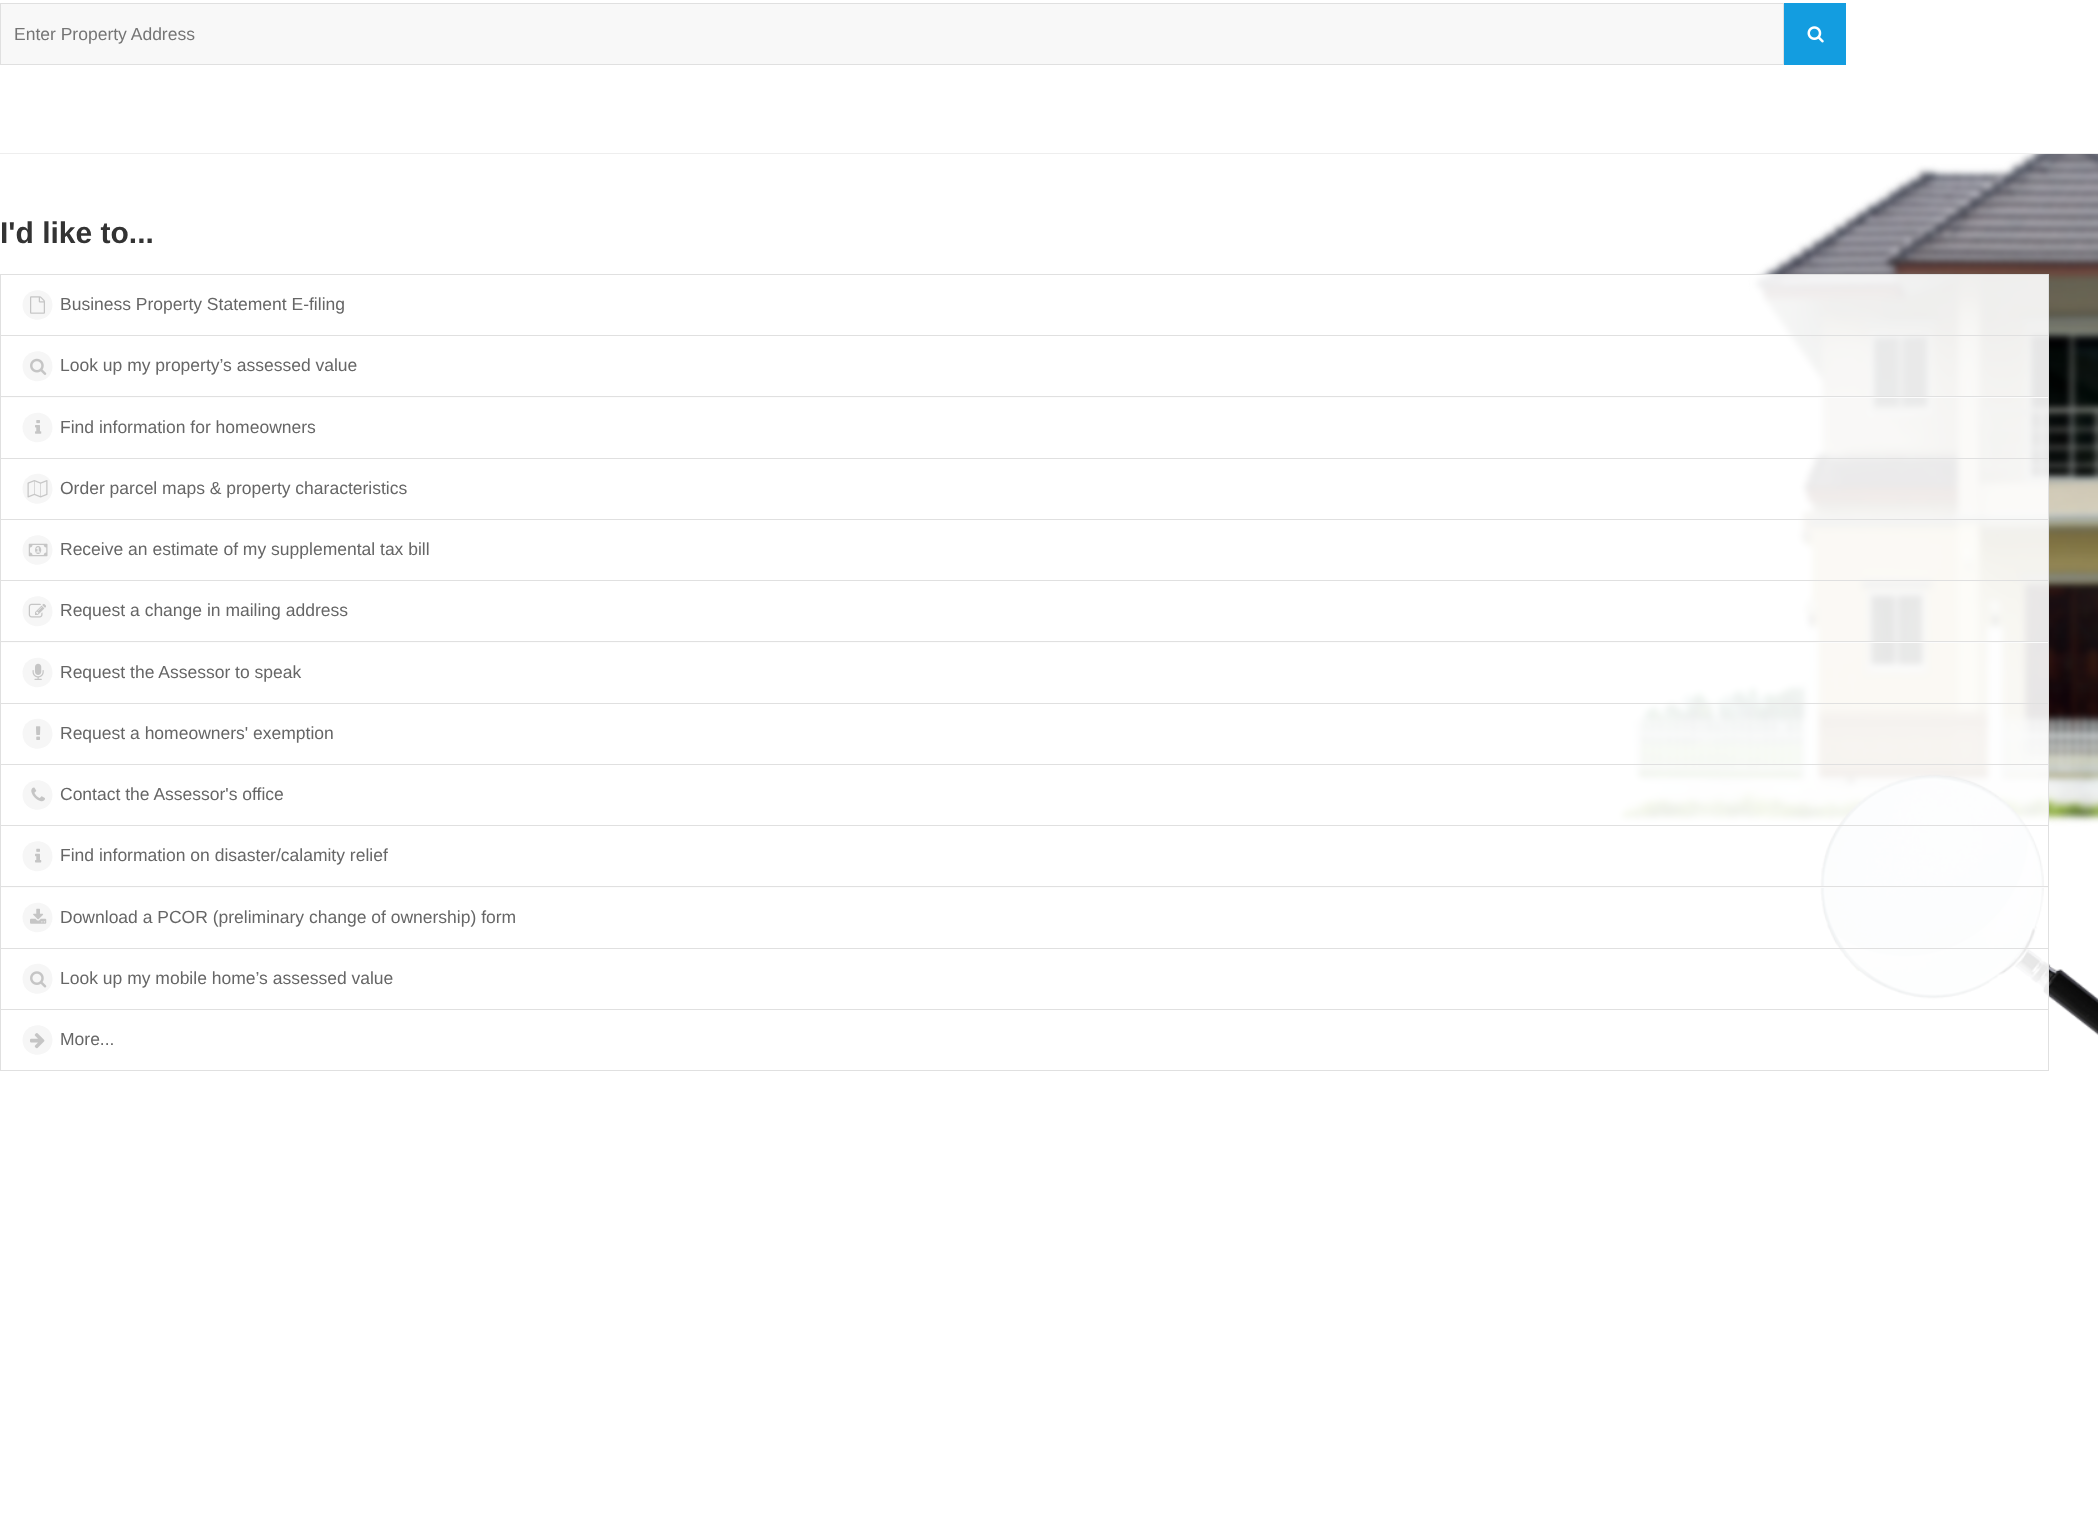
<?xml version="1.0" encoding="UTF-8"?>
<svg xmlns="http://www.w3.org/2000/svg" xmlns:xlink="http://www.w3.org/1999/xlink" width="2098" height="1514">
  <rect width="100%" height="100%" fill="#ffffff" />
  <rect x="0.5" y="3.5" width="1783" height="61" fill="#f8f8f8" stroke="#e0e0e0" />
  <rect x="1784" y="3" width="62" height="62" fill="#139de0" />
  <image x="1807" y="26" width="17" height="17" xlink:href="image1.png" />
  <rect y="153" width="2098" height="1" fill="#eeeeee" />
  <image x="1616" y="154" width="482" height="882" xlink:href="image2.png" />
  <rect x="1750" y="274" width="299" height="62" fill="#ffffff" fill-opacity="0.9" />
  <rect x="0.5" y="274.5" width="2048" height="61" fill="none" stroke="#dddddd" stroke-opacity="0.9" />
  <path d="M 50.5 297.5 c 1.5 2.5 2 5.5 2 8.5 c -1 14.5 -20.5 19 -28 6.5 c -1.5 -2.5 -2 -5.5 -2 -8.5 c 1 -14.5 20.5 -19 28 -6.5 z" fill="#f6f6f6" />
  <image x="30" y="296" width="15" height="18" xlink:href="image3.png" />
  <rect y="335" width="2049" height="63" fill="#ffffff" fill-opacity="0.9" />
  <rect x="0.5" y="335.5" width="2048" height="62" fill="none" stroke="#dddddd" stroke-opacity="0.9" />
  <path d="M 50.5 358.5 c 1.5 3 2 6 2 9 c -1 14.5 -20.5 19 -28 6.5 c -1.5 -3 -2 -6 -2 -9 c 1 -14.5 20.5 -19 28 -6.5 z" fill="#f6f6f6" />
  <image x="30" y="358" width="17" height="17" xlink:href="image4.png" />
  <rect y="396" width="2049" height="63" fill="#ffffff" fill-opacity="0.9" />
  <rect x="0.5" y="396.5" width="2048" height="62" fill="none" stroke="#dddddd" stroke-opacity="0.9" />
  <path d="M 50.5 420 c 1.5 2.5 2 5.5 2 8.5 c -1 14.5 -20.5 19 -28 6.5 c -1.5 -2.5 -2 -5.5 -2 -8.5 c 1 -14.5 20.5 -19 28 -6.5 z" fill="#f6f6f6" />
  <image x="35" y="420" width="7" height="14" xlink:href="image5.png" />
  <rect y="458" width="2049" height="62" fill="#ffffff" fill-opacity="0.9" />
  <rect x="0.5" y="458.5" width="2048" height="61" fill="none" stroke="#dddddd" stroke-opacity="0.9" />
  <path d="M 50.5 481 c 1.5 3 2 6 2 9 c -1 14.5 -20.5 19 -28 6.5 c -1.5 -3 -2 -6 -2 -9 c 1 -14.5 20.5 -19 28 -6.5 z" fill="#f6f6f6" />
  <image x="27" y="480" width="21" height="18" xlink:href="image6.png" />
  <rect y="519" width="2049" height="62" fill="#ffffff" fill-opacity="0.9" />
  <rect x="0.5" y="519.5" width="2048" height="61" fill="none" stroke="#dddddd" stroke-opacity="0.9" />
  <path d="M 50.5 542.5 c 1.5 2.5 2 5.5 2 8.5 c -1 14.5 -20.5 19 -28 6.5 c -1.5 -2.5 -2 -5.5 -2 -8.5 c 1 -14.5 20.5 -19 28 -6.5 z" fill="#f6f6f6" />
  <image x="28" y="543" width="20" height="14" xlink:href="image7.png" />
  <rect y="580" width="2049" height="63" fill="#ffffff" fill-opacity="0.9" />
  <rect x="0.5" y="580.5" width="2048" height="62" fill="none" stroke="#dddddd" stroke-opacity="0.9" />
  <path d="M 50.5 603.5 c 1.5 3 2 6 2 9 c -1 14.5 -20.5 19 -28 6.5 c -1.5 -3 -2 -6 -2 -9 c 1 -14.5 20.5 -19 28 -6.5 z" fill="#f6f6f6" />
  <image x="28" y="603" width="18" height="15" xlink:href="image8.png" />
  <rect y="641" width="2049" height="63" fill="#ffffff" fill-opacity="0.9" />
  <rect x="0.5" y="641.5" width="2048" height="62" fill="none" stroke="#dddddd" stroke-opacity="0.9" />
  <path d="M 50.5 665 c 1.5 2.5 2 5.5 2 8.5 c -1 14.5 -20.5 19 -28 6.5 c -1.5 -2.5 -2 -5.5 -2 -8.5 c 1 -14.5 20.5 -19 28 -6.5 z" fill="#f6f6f6" />
  <image x="32" y="663" width="12" height="17" xlink:href="image9.png" />
  <rect y="703" width="2049" height="62" fill="#ffffff" fill-opacity="0.9" />
  <rect x="0.5" y="703.5" width="2048" height="61" fill="none" stroke="#dddddd" stroke-opacity="0.9" />
  <path d="M 50.5 726 c 1.5 3 2 6 2 9 c -1 14.5 -20.5 19 -28 6.5 c -1.5 -3 -2 -6 -2 -9 c 1 -14.5 20.5 -19 28 -6.5 z" fill="#f6f6f6" />
  <image x="36" y="726" width="5" height="14" xlink:href="image10.png" />
  <rect y="764" width="2049" height="62" fill="#ffffff" fill-opacity="0.9" />
  <rect x="0.5" y="764.5" width="2048" height="61" fill="none" stroke="#dddddd" stroke-opacity="0.9" />
  <path d="M 50.5 787.5 c 1.5 2.5 2 5.5 2 8.5 c -1 14.5 -20.5 19 -28 6.5 c -1.5 -2.5 -2 -5.5 -2 -8.5 c 1 -14.5 20.5 -19 28 -6.5 z" fill="#f6f6f6" />
  <image x="31" y="787" width="14" height="15" xlink:href="image11.png" />
  <rect y="825" width="2049" height="63" fill="#ffffff" fill-opacity="0.9" />
  <rect x="0.5" y="825.5" width="2048" height="62" fill="none" stroke="#dddddd" stroke-opacity="0.9" />
  <path d="M 50.5 848.5 c 1.5 3 2 6 2 9 c -1 14.5 -20.5 19 -28 6.5 c -1.5 -3 -2 -6 -2 -9 c 1 -14.5 20.5 -19 28 -6.5 z" fill="#f6f6f6" />
  <image x="35" y="848" width="7" height="15" xlink:href="image12.png" />
  <rect y="886" width="2049" height="63" fill="#ffffff" fill-opacity="0.9" />
  <rect x="0.5" y="886.5" width="2048" height="62" fill="none" stroke="#dddddd" stroke-opacity="0.9" />
  <path d="M 50.5 910 c 1.5 2.5 2 5.5 2 8.5 c -1 14.5 -20.5 19 -28 6.5 c -1.5 -2.5 -2 -5.5 -2 -8.5 c 1 -14.5 20.5 -19 28 -6.5 z" fill="#f6f6f6" />
  <image x="30" y="908" width="17" height="16" xlink:href="image13.png" />
  <rect y="948" width="2049" height="51" fill="#ffffff" fill-opacity="0.9" />
  <rect x="0.5" y="948.5" width="2048" height="61" fill="none" stroke="#dddddd" stroke-opacity="0.9" />
  <path d="M 50.5 971 c 1.5 3 2 6 2 9 c -1 14.5 -20.5 19 -28 6.5 c -1.5 -3 -2 -6 -2 -9 c 1 -14.5 20.5 -19 28 -6.5 z" fill="#f6f6f6" />
  <image x="30" y="971" width="17" height="17" xlink:href="image14.png" />
  <rect x="0.5" y="1009.5" width="2048" height="61" fill="none" stroke="#e0e0e0" />
  <path d="M 50.5 1032.5 c 1.5 2.5 2 5.5 2 8.5 c -1 14.5 -20.5 19 -28 6.5 c -1.5 -2.5 -2 -5.5 -2 -8.5 c 1 -14.5 20.5 -19 28 -6.5 z" fill="#f6f6f6" />
  <image x="30" y="1033" width="15" height="16" xlink:href="image15.png" />
  <text x="14" y="40" style="font-family: Liberation Sans; font-size: 17.5px; fill: #757575">Enter Property Address</text>
  <text x="0" y="243" style="font-family: Liberation Sans; font-size: 30px; font-weight: bold; fill: #333333">I'd like to...</text>
  <text x="60" y="310" style="font-family: Liberation Sans; font-size: 17.5px; fill: #666666">Business Property Statement E-filing</text>
  <text x="60" y="371" style="font-family: Liberation Sans; font-size: 17.5px; fill: #666666">Look up my property’s assessed value</text>
  <text x="60" y="433" style="font-family: Liberation Sans; font-size: 17.5px; fill: #666666">Find information for homeowners</text>
  <text x="60" y="494" style="font-family: Liberation Sans; font-size: 17.5px; fill: #666666">Order parcel maps &amp; property characteristics</text>
  <text x="60" y="555" style="font-family: Liberation Sans; font-size: 17.5px; fill: #666666">Receive an estimate of my supplemental tax bill</text>
  <text x="60" y="616" style="font-family: Liberation Sans; font-size: 17.5px; fill: #666666">Request a change in mailing address</text>
  <text x="60" y="678" style="font-family: Liberation Sans; font-size: 17.5px; fill: #666666">Request the Assessor to speak</text>
  <text x="60" y="739" style="font-family: Liberation Sans; font-size: 17.5px; fill: #666666">Request a homeowners' exemption</text>
  <text x="60" y="800" style="font-family: Liberation Sans; font-size: 17.5px; fill: #666666">Contact the Assessor's office</text>
  <text x="60" y="861" style="font-family: Liberation Sans; font-size: 17.5px; fill: #666666">Find information on disaster/calamity relief</text>
  <text x="60" y="923" style="font-family: Liberation Sans; font-size: 17.5px; fill: #666666">Download a PCOR (preliminary change of ownership) form</text>
  <text x="60" y="984" style="font-family: Liberation Sans; font-size: 17.5px; fill: #666666">Look up my mobile home’s assessed value</text>
  <text x="60" y="1045" style="font-family: Liberation Sans; font-size: 17.5px; fill: #666666">More...</text>
</svg>
